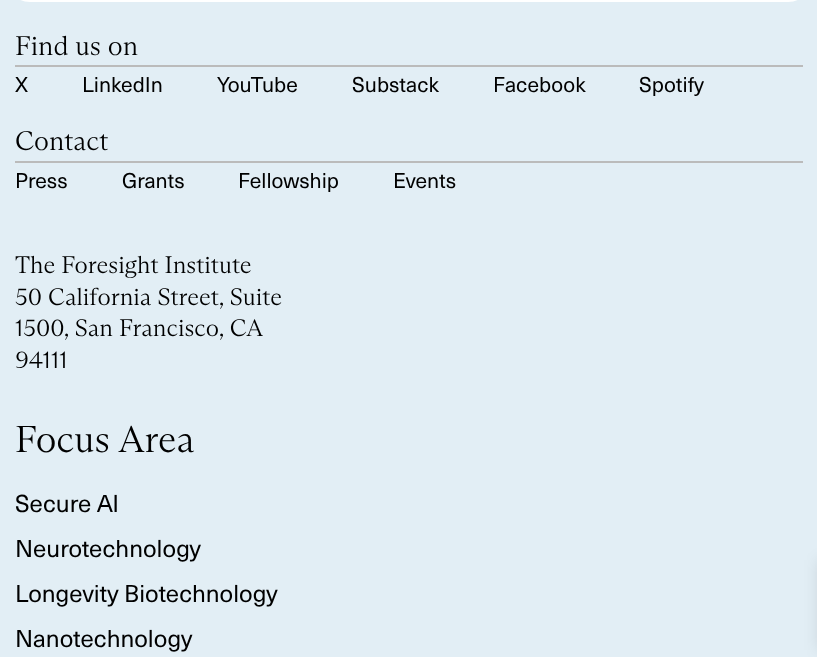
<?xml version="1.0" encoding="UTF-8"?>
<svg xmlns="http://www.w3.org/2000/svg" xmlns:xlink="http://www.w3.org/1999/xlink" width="817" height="657">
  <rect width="100%" height="100%" fill="#e2eef5" />
  <rect x="15" y="-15" width="788" height="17" rx="15" fill="#ffffff" />
  <rect x="15" y="65" width="788" height="2" fill="#bbbbbb" />
  <rect x="15" y="161" width="788" height="2" fill="#bbbbbb" />
  <rect x="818" y="560" width="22" height="90" fill="#000000" fill-opacity="0.1" filter="blur(7.5px)" />
  <text x="15" y="55" style="font-family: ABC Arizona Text; font-size: 27px; font-weight: 300; fill: #000000">Find us on</text>
  <text x="15" y="92" style="font-family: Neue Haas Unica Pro; font-size: 21px; fill: #000000">X</text>
  <text x="82" y="92" style="font-family: Neue Haas Unica Pro; font-size: 21px; fill: #000000">LinkedIn</text>
  <text x="217" y="92" style="font-family: Neue Haas Unica Pro; font-size: 21px; fill: #000000">YouTube</text>
  <text x="352" y="92" style="font-family: Neue Haas Unica Pro; font-size: 21px; fill: #000000">Substack</text>
  <text x="493" y="92" style="font-family: Neue Haas Unica Pro; font-size: 21px; fill: #000000">Facebook</text>
  <text x="639" y="92" style="font-family: Neue Haas Unica Pro; font-size: 21px; fill: #000000">Spotify</text>
  <text x="15" y="150" style="font-family: ABC Arizona Text; font-size: 27px; font-weight: 300; fill: #000000">Contact</text>
  <text x="15" y="188" style="font-family: Neue Haas Unica Pro; font-size: 21px; fill: #000000">Press</text>
  <text x="122" y="188" style="font-family: Neue Haas Unica Pro; font-size: 21px; fill: #000000">Grants</text>
  <text x="238" y="188" style="font-family: Neue Haas Unica Pro; font-size: 21px; fill: #000000">Fellowship</text>
  <text x="393" y="188" style="font-family: Neue Haas Unica Pro; font-size: 21px; fill: #000000">Events</text>
  <text x="15" y="273" style="font-family: ABC Arizona Text; font-size: 24px; font-weight: 300; fill: #000000">The Foresight Institute</text>
  <text x="15" y="305" style="font-family: ABC Arizona Text; font-size: 24px; font-weight: 300; fill: #000000">50 California Street, Suite</text>
  <text x="15" y="336" style="font-family: ABC Arizona Text; font-size: 24px; font-weight: 300; fill: #000000">1500, San Francisco, CA</text>
  <text x="15" y="368" style="font-family: ABC Arizona Text; font-size: 24px; font-weight: 300; fill: #000000">94111</text>
  <text x="15" y="452" style="font-family: ABC Arizona Text; font-size: 37.5px; font-weight: 300; fill: #000000">Focus Area</text>
  <text x="15" y="512" style="font-family: Neue Haas Unica Pro; font-size: 24px; fill: #000000">Secure AI</text>
  <text x="15" y="557" style="font-family: Neue Haas Unica Pro; font-size: 24px; fill: #000000">Neurotechnology</text>
  <text x="15" y="602" style="font-family: Neue Haas Unica Pro; font-size: 24px; fill: #000000">Longevity Biotechnology</text>
  <text x="15" y="647" style="font-family: Neue Haas Unica Pro; font-size: 24px; fill: #000000">Nanotechnology</text>
</svg>
